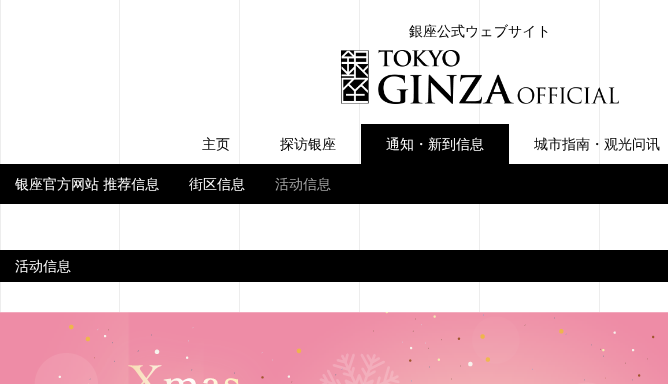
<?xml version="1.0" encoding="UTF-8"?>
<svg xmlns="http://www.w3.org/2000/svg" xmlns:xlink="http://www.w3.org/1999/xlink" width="668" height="384">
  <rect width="100%" height="100%" fill="#ffffff" />
  <image x="0" y="0" width="600" height="312" xlink:href="image1.png" />
  <image x="341" y="50" width="278" height="54" xlink:href="image2.png" />
  <rect x="361" y="124" width="148" height="40" fill="#000000" />
  <rect y="164" width="668" height="40" fill="#000000" />
  <rect y="250" width="668" height="32" fill="#000000" />
  <image x="0" y="312" width="668" height="72" xlink:href="image3.png" />
  <text x="409" y="36" style="font-family: WenQuanYi Zen Hei; font-size: 14px; font-weight: 500; fill: #000000">銀座公式ウェブサイト</text>
  <text x="386" y="149" style="font-family: WenQuanYi Zen Hei; font-size: 14px; font-weight: 500; fill: #ffffff">通知・新到信息</text>
  <text x="15" y="189" style="font-family: WenQuanYi Zen Hei; font-size: 14px; font-weight: 500; fill: #ffffff">银座官方网站 推荐信息</text>
  <text x="189" y="189" style="font-family: WenQuanYi Zen Hei; font-size: 14px; font-weight: 500; fill: #ffffff">街区信息</text>
  <text x="275" y="189" style="font-family: WenQuanYi Zen Hei; font-size: 14px; font-weight: 500; fill: #a3a3a3">活动信息</text>
  <text x="202" y="149" style="font-family: WenQuanYi Zen Hei; font-size: 14px; font-weight: 500; fill: #000000">主页</text>
  <text x="280" y="149" style="font-family: WenQuanYi Zen Hei; font-size: 14px; font-weight: 500; fill: #000000">探访银座</text>
  <text x="534" y="149" style="font-family: WenQuanYi Zen Hei; font-size: 14px; font-weight: 500; fill: #000000">城市指南・观光问讯</text>
  <text x="15" y="271" style="font-family: WenQuanYi Zen Hei; font-size: 14px; font-weight: 500; fill: #ffffff">活动信息</text>
</svg>
